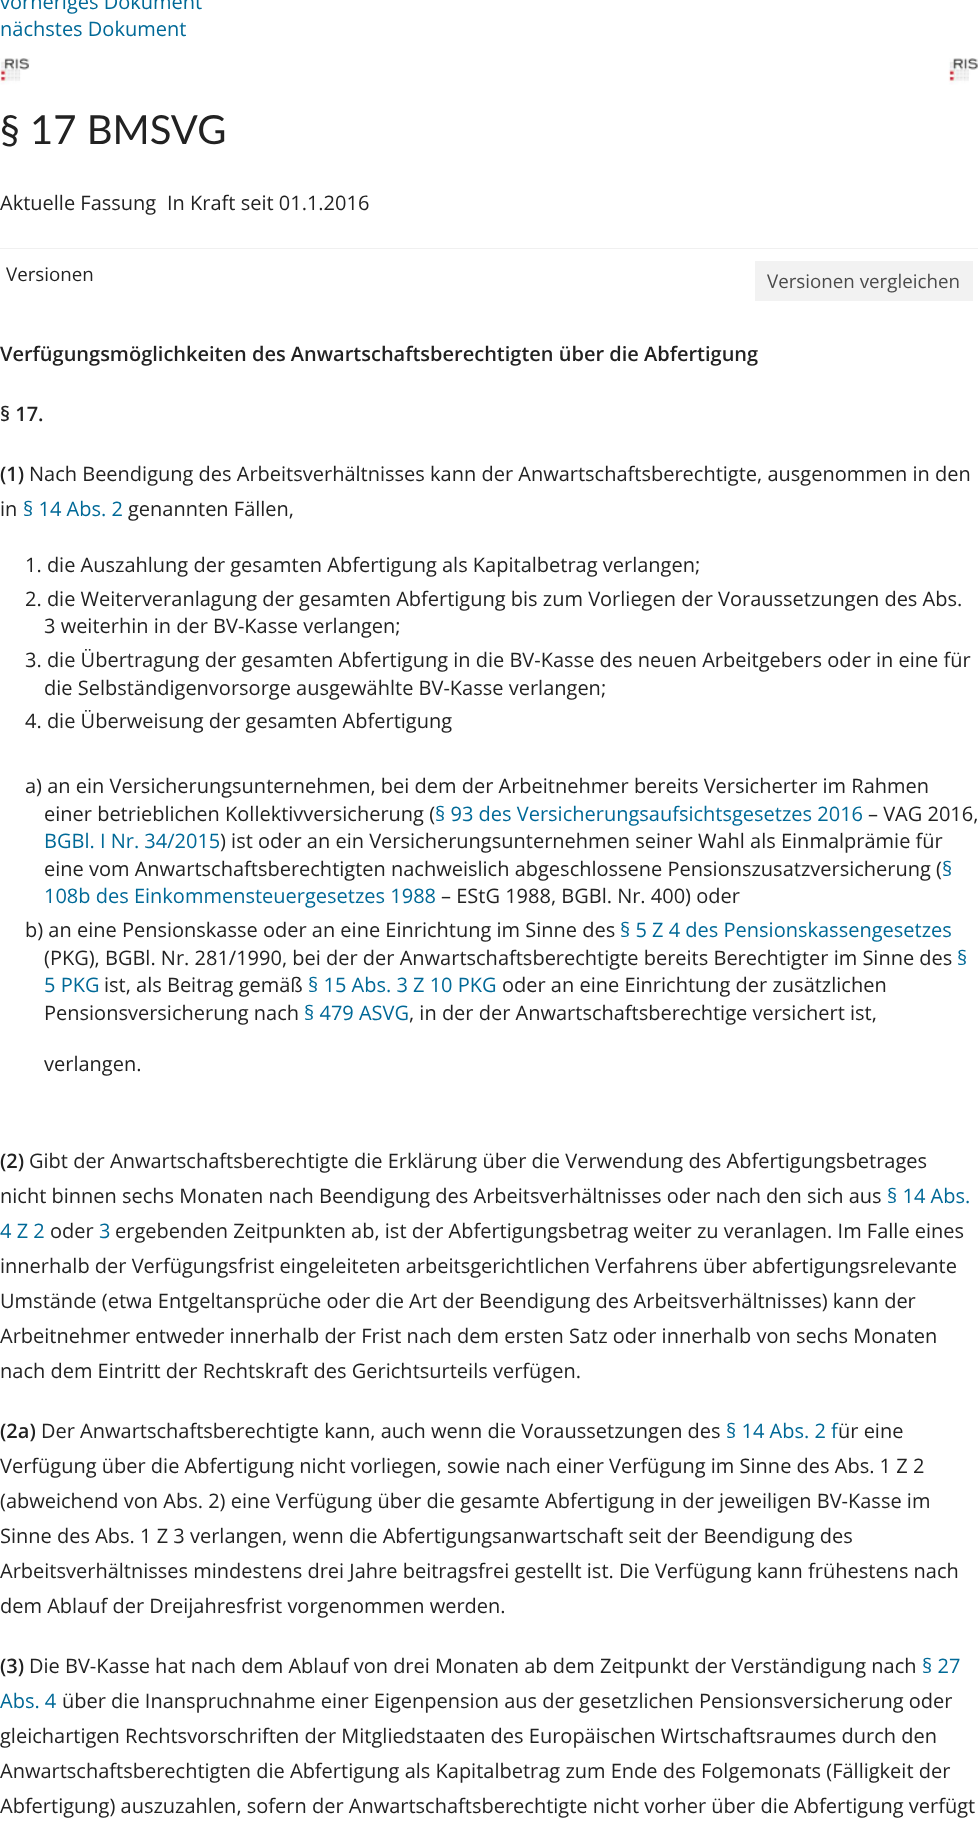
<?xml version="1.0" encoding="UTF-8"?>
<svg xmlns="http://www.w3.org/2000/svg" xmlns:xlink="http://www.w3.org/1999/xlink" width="978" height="1843">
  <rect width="100%" height="100%" fill="#ffffff" />
  <image x="948" y="58" width="30" height="27" xlink:href="image1.png" />
  <image x="0" y="58" width="30" height="27" xlink:href="image2.png" />
  <rect y="248" width="978" height="1" fill="#f0f0f0" />
  <rect x="755" y="261" width="218" height="40" fill="#f2f2f2" />
  <text x="0" y="9" style="font-family: Open Sans; font-size: 20px; fill: #006997">vorheriges Dokument</text>
  <text x="0" y="36" style="font-family: Open Sans; font-size: 20px; fill: #006997">nächstes Dokument</text>
  <text x="0" y="144" style="font-family: Lato; font-size: 40px; fill: #222222">§ 17 BMSVG</text>
  <text x="0" y="210" style="font-family: Open Sans; font-size: 20px; fill: #222222">Aktuelle Fassung</text>
  <text x="167" y="210" style="font-family: Open Sans; font-size: 20px; fill: #222222">In Kraft seit 01.1.2016</text>
  <text x="6" y="281" style="font-family: Open Sans; font-size: 18.75px; fill: #222222">Versionen</text>
  <text x="767" y="288" style="font-family: Open Sans; font-size: 18.75px; fill: #4a4a4a">Versionen vergleichen</text>
  <text x="0" y="361" style="font-family: Open Sans; font-size: 20px; font-weight: 600; fill: #222222">Verfügungsmöglichkeiten des Anwartschaftsberechtigten über die Abfertigung</text>
  <text x="0" y="421" style="font-family: Open Sans; font-size: 20px; font-weight: 600; fill: #222222">§ 17.</text>
  <text x="0" y="481" style="font-family: Open Sans; font-size: 20px; font-weight: 600; fill: #222222">(1)</text>
  <text x="29" y="481" style="font-family: Open Sans; font-size: 20px; fill: #222222">Nach Beendigung des Arbeitsverhältnisses kann der Anwartschaftsberechtigte, ausgenommen in den</text>
  <text x="0" y="516" style="font-family: Open Sans; font-size: 20px; fill: #222222">in</text>
  <text x="23" y="516" style="font-family: Open Sans; font-size: 20px; fill: #006997">§ 14 Abs. 2</text>
  <text x="128" y="516" style="font-family: Open Sans; font-size: 20px; fill: #222222">genannten Fällen,</text>
  <text x="25" y="572" style="font-family: Open Sans; font-size: 20px; fill: #222222">1. die Auszahlung der gesamten Abfertigung als Kapitalbetrag verlangen;</text>
  <text x="25" y="606" style="font-family: Open Sans; font-size: 20px; fill: #222222">2. die Weiterveranlagung der gesamten Abfertigung bis zum Vorliegen der Voraussetzungen des Abs.</text>
  <text x="44" y="633" style="font-family: Open Sans; font-size: 20px; fill: #222222">3 weiterhin in der BV-Kasse verlangen;</text>
  <text x="25" y="667" style="font-family: Open Sans; font-size: 20px; fill: #222222">3. die Übertragung der gesamten Abfertigung in die BV-Kasse des neuen Arbeitgebers oder in eine für</text>
  <text x="44" y="695" style="font-family: Open Sans; font-size: 20px; fill: #222222">die Selbständigenvorsorge ausgewählte BV-Kasse verlangen;</text>
  <text x="25" y="728" style="font-family: Open Sans; font-size: 20px; fill: #222222">4. die Überweisung der gesamten Abfertigung</text>
  <text x="25" y="793" style="font-family: Open Sans; font-size: 20px; fill: #222222">a) an ein Versicherungsunternehmen, bei dem der Arbeitnehmer bereits Versicherter im Rahmen</text>
  <text x="44" y="821" style="font-family: Open Sans; font-size: 20px; fill: #222222">einer betrieblichen Kollektivversicherung (</text>
  <text x="435" y="821" style="font-family: Open Sans; font-size: 20px; fill: #006997">§ 93 des Versicherungsaufsichtsgesetzes 2016</text>
  <text x="868" y="821" style="font-family: Open Sans; font-size: 20px; fill: #222222">– VAG 2016,</text>
  <text x="44" y="848" style="font-family: Open Sans; font-size: 20px; fill: #006997">BGBl. I Nr. 34/2015</text>
  <text x="220" y="848" style="font-family: Open Sans; font-size: 20px; fill: #222222">) ist oder an ein Versicherungsunternehmen seiner Wahl als Einmalprämie für</text>
  <text x="44" y="876" style="font-family: Open Sans; font-size: 20px; fill: #222222">eine vom Anwartschaftsberechtigten nachweislich abgeschlossene Pensionszusatzversicherung (</text>
  <text x="942" y="876" style="font-family: Open Sans; font-size: 20px; fill: #006997">§</text>
  <text x="44" y="903" style="font-family: Open Sans; font-size: 20px; fill: #006997">108b des Einkommensteuergesetzes 1988</text>
  <text x="441" y="903" style="font-family: Open Sans; font-size: 20px; fill: #222222">– EStG 1988, BGBl. Nr. 400) oder</text>
  <text x="25" y="937" style="font-family: Open Sans; font-size: 20px; fill: #222222">b) an eine Pensionskasse oder an eine Einrichtung im Sinne des</text>
  <text x="620" y="937" style="font-family: Open Sans; font-size: 20px; fill: #006997">§ 5 Z 4 des Pensionskassengesetzes</text>
  <text x="44" y="965" style="font-family: Open Sans; font-size: 20px; fill: #222222">(PKG), BGBl. Nr. 281/1990, bei der der Anwartschaftsberechtigte bereits Berechtigter im Sinne des</text>
  <text x="957" y="965" style="font-family: Open Sans; font-size: 20px; fill: #006997">§</text>
  <text x="44" y="992" style="font-family: Open Sans; font-size: 20px; fill: #006997">5 PKG</text>
  <text x="104" y="992" style="font-family: Open Sans; font-size: 20px; fill: #222222">ist, als Beitrag gemäß</text>
  <text x="308" y="992" style="font-family: Open Sans; font-size: 20px; fill: #006997">§ 15 Abs. 3 Z 10 PKG</text>
  <text x="502" y="992" style="font-family: Open Sans; font-size: 20px; fill: #222222">oder an eine Einrichtung der zusätzlichen</text>
  <text x="44" y="1020" style="font-family: Open Sans; font-size: 20px; fill: #222222">Pensionsversicherung nach</text>
  <text x="304" y="1020" style="font-family: Open Sans; font-size: 20px; fill: #006997">§ 479 ASVG</text>
  <text x="409" y="1020" style="font-family: Open Sans; font-size: 20px; fill: #222222">, in der der Anwartschaftsberechtige versichert ist,</text>
  <text x="44" y="1071" style="font-family: Open Sans; font-size: 20px; fill: #222222">verlangen.</text>
  <text x="0" y="1168" style="font-family: Open Sans; font-size: 20px; font-weight: 600; fill: #222222">(2)</text>
  <text x="29" y="1168" style="font-family: Open Sans; font-size: 20px; fill: #222222">Gibt der Anwartschaftsberechtigte die Erklärung über die Verwendung des Abfertigungsbetrages</text>
  <text x="0" y="1203" style="font-family: Open Sans; font-size: 20px; fill: #222222">nicht binnen sechs Monaten nach Beendigung des Arbeitsverhältnisses oder nach den sich aus</text>
  <text x="887" y="1203" style="font-family: Open Sans; font-size: 20px; fill: #006997">§ 14 Abs.</text>
  <text x="0" y="1238" style="font-family: Open Sans; font-size: 20px; fill: #006997">4 Z 2</text>
  <text x="50" y="1238" style="font-family: Open Sans; font-size: 20px; fill: #222222">oder</text>
  <text x="99" y="1238" style="font-family: Open Sans; font-size: 20px; fill: #006997">3</text>
  <text x="115" y="1238" style="font-family: Open Sans; font-size: 20px; fill: #222222">ergebenden Zeitpunkten ab, ist der Abfertigungsbetrag weiter zu veranlagen. Im Falle eines</text>
  <text x="0" y="1273" style="font-family: Open Sans; font-size: 20px; fill: #222222">innerhalb der Verfügungsfrist eingeleiteten arbeitsgerichtlichen Verfahrens über abfertigungsrelevante</text>
  <text x="0" y="1308" style="font-family: Open Sans; font-size: 20px; fill: #222222">Umstände (etwa Entgeltansprüche oder die Art der Beendigung des Arbeitsverhältnisses) kann der</text>
  <text x="0" y="1343" style="font-family: Open Sans; font-size: 20px; fill: #222222">Arbeitnehmer entweder innerhalb der Frist nach dem ersten Satz oder innerhalb von sechs Monaten</text>
  <text x="0" y="1378" style="font-family: Open Sans; font-size: 20px; fill: #222222">nach dem Eintritt der Rechtskraft des Gerichtsurteils verfügen.</text>
  <text x="0" y="1438" style="font-family: Open Sans; font-size: 20px; font-weight: 600; fill: #222222">(2a)</text>
  <text x="41" y="1438" style="font-family: Open Sans; font-size: 20px; fill: #222222">Der Anwartschaftsberechtigte kann, auch wenn die Voraussetzungen des</text>
  <text x="726" y="1438" style="font-family: Open Sans; font-size: 20px; fill: #006997">§ 14 Abs. 2 f</text>
  <text x="838" y="1438" style="font-family: Open Sans; font-size: 20px; fill: #222222">ür eine</text>
  <text x="0" y="1473" style="font-family: Open Sans; font-size: 20px; fill: #222222">Verfügung über die Abfertigung nicht vorliegen, sowie nach einer Verfügung im Sinne des Abs. 1 Z 2</text>
  <text x="0" y="1508" style="font-family: Open Sans; font-size: 20px; fill: #222222">(abweichend von Abs. 2) eine Verfügung über die gesamte Abfertigung in der jeweiligen BV-Kasse im</text>
  <text x="0" y="1543" style="font-family: Open Sans; font-size: 20px; fill: #222222">Sinne des Abs. 1 Z 3 verlangen, wenn die Abfertigungsanwartschaft seit der Beendigung des</text>
  <text x="0" y="1578" style="font-family: Open Sans; font-size: 20px; fill: #222222">Arbeitsverhältnisses mindestens drei Jahre beitragsfrei gestellt ist. Die Verfügung kann frühestens nach</text>
  <text x="0" y="1613" style="font-family: Open Sans; font-size: 20px; fill: #222222">dem Ablauf der Dreijahresfrist vorgenommen werden.</text>
  <text x="0" y="1673" style="font-family: Open Sans; font-size: 20px; font-weight: 600; fill: #222222">(3)</text>
  <text x="29" y="1673" style="font-family: Open Sans; font-size: 20px; fill: #222222">Die BV-Kasse hat nach dem Ablauf von drei Monaten ab dem Zeitpunkt der Verständigung nach</text>
  <text x="922" y="1673" style="font-family: Open Sans; font-size: 20px; fill: #006997">§ 27</text>
  <text x="0" y="1708" style="font-family: Open Sans; font-size: 20px; fill: #006997">Abs. 4</text>
  <text x="62" y="1708" style="font-family: Open Sans; font-size: 20px; fill: #222222">über die Inanspruchnahme einer Eigenpension aus der gesetzlichen Pensionsversicherung oder</text>
  <text x="0" y="1743" style="font-family: Open Sans; font-size: 20px; fill: #222222">gleichartigen Rechtsvorschriften der Mitgliedstaaten des Europäischen Wirtschaftsraumes durch den</text>
  <text x="0" y="1778" style="font-family: Open Sans; font-size: 20px; fill: #222222">Anwartschaftsberechtigten die Abfertigung als Kapitalbetrag zum Ende des Folgemonats (Fälligkeit der</text>
  <text x="0" y="1813" style="font-family: Open Sans; font-size: 20px; fill: #222222">Abfertigung) auszuzahlen, sofern der Anwartschaftsberechtigte nicht vorher über die Abfertigung verfügt</text>
</svg>
